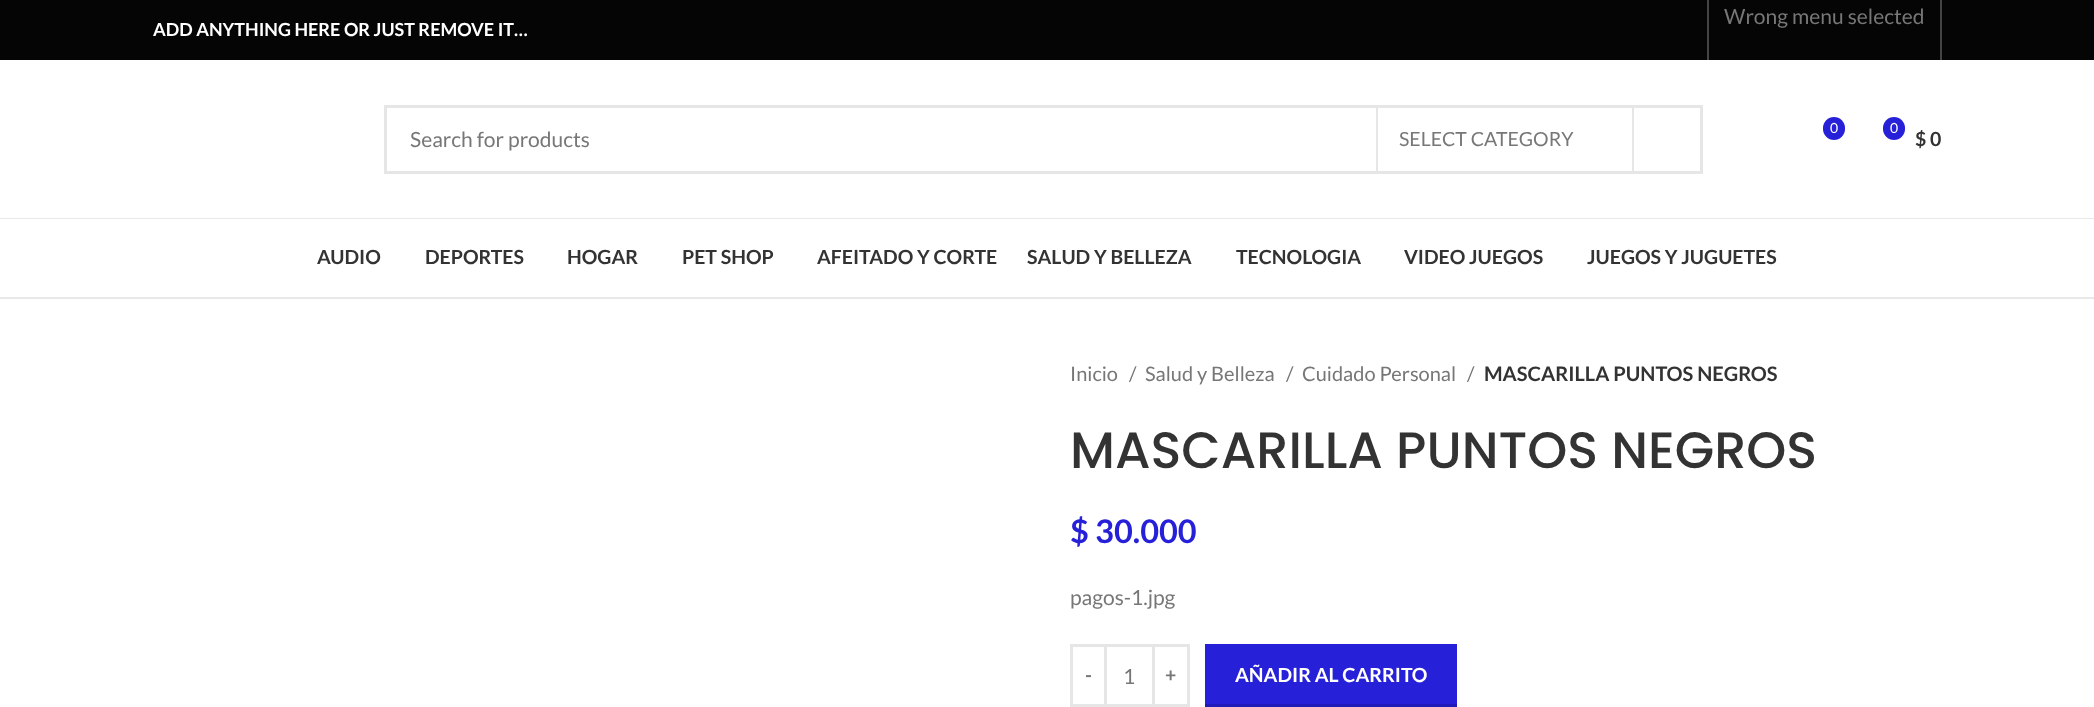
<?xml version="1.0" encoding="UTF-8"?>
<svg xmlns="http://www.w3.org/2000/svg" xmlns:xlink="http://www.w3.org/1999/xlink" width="2094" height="707">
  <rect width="100%" height="100%" fill="#ffffff" />
  <rect width="2094" height="60" fill="#050505" />
  <rect x="1707" width="2" height="60" fill="#444444" />
  <rect x="1940" width="2" height="60" fill="#444444" />
  <rect y="218" width="2094" height="1" fill="#e8e8e8" />
  <rect x="385.5" y="106.5" width="1316" height="66" fill="none" stroke="#e6e6e6" stroke-width="3" />
  <rect x="1632" y="108" width="2" height="63" fill="#e6e6e6" />
  <rect x="1376" y="108" width="2" height="63" fill="#e6e6e6" />
  <rect x="1823" y="117" width="22" height="23" rx="11" fill="#2620d8" />
  <rect x="1883" y="117" width="22" height="23" rx="11" fill="#2620d8" />
  <rect y="297" width="2094" height="2" fill="#e8e8e8" />
  <rect x="1071.5" y="645.5" width="34" height="60" fill="none" stroke="#e6e6e6" stroke-width="3" />
  <rect x="1107" y="644" width="45" height="3" fill="#e6e6e6" />
  <rect x="1107" y="704" width="45" height="3" fill="#e6e6e6" />
  <rect x="1153.5" y="645.5" width="35" height="60" fill="none" stroke="#e6e6e6" stroke-width="3" />
  <rect x="1205" y="644" width="252" height="60" fill="#2620d8" />
  <rect x="1205" y="704" width="252" height="3" fill="#201bb8" />
  <text x="1724" y="24" style="font-family: Lato; font-size: 21px; fill: #777777">Wrong menu selected</text>
  <text x="153" y="36" style="font-family: Lato; font-size: 18px; font-weight: bold; fill: #ffffff">ADD ANYTHING HERE OR JUST REMOVE IT…</text>
  <text x="410" y="147" style="font-family: Lato; font-size: 21px; fill: #777777">Search for products</text>
  <text x="1399" y="146" style="font-family: Lato; font-size: 19.5px; fill: #777777">SELECT CATEGORY</text>
  <text x="1830" y="133" style="font-family: Lato; font-size: 14px; fill: #ffffff">0</text>
  <text x="1890" y="133" style="font-family: Lato; font-size: 14px; fill: #ffffff">0</text>
  <text x="1915" y="146" style="font-family: Lato; font-size: 19.5px; font-weight: bold; fill: #333333">$ 0</text>
  <text x="317" y="264" style="font-family: Lato; font-size: 19.5px; font-weight: bold; fill: #333333">AUDIO</text>
  <text x="425" y="264" style="font-family: Lato; font-size: 19.5px; font-weight: bold; fill: #333333">DEPORTES</text>
  <text x="567" y="264" style="font-family: Lato; font-size: 19.5px; font-weight: bold; fill: #333333">HOGAR</text>
  <text x="682" y="264" style="font-family: Lato; font-size: 19.5px; font-weight: bold; fill: #333333">PET SHOP</text>
  <text x="817" y="264" style="font-family: Lato; font-size: 19.5px; font-weight: bold; fill: #333333">AFEITADO Y CORTE</text>
  <text x="1027" y="264" style="font-family: Lato; font-size: 19.5px; font-weight: bold; fill: #333333">SALUD Y BELLEZA</text>
  <text x="1236" y="264" style="font-family: Lato; font-size: 19.5px; font-weight: bold; fill: #333333">TECNOLOGIA</text>
  <text x="1404" y="264" style="font-family: Lato; font-size: 19.5px; font-weight: bold; fill: #333333">VIDEO JUEGOS</text>
  <text x="1587" y="264" style="font-family: Lato; font-size: 19.5px; font-weight: bold; fill: #333333">JUEGOS Y JUGUETES</text>
  <text x="1070" y="381" style="font-family: Lato; font-size: 20px; fill: #777777">Inicio</text>
  <text x="1129" y="381" style="font-family: Lato; font-size: 20px; fill: #777777">/</text>
  <text x="1145" y="381" style="font-family: Lato; font-size: 20px; fill: #777777">Salud y Belleza</text>
  <text x="1286" y="381" style="font-family: Lato; font-size: 20px; fill: #777777">/</text>
  <text x="1302" y="381" style="font-family: Lato; font-size: 20px; fill: #777777">Cuidado Personal</text>
  <text x="1467" y="381" style="font-family: Lato; font-size: 20px; fill: #777777">/</text>
  <text x="1484" y="381" style="font-family: Lato; font-size: 20px; font-weight: bold; fill: #333333">MASCARILLA PUNTOS NEGROS</text>
  <text x="1070" y="468" style="font-family: Poppins; font-size: 51px; font-weight: 500; fill: #333333">MASCARILLA PUNTOS NEGROS</text>
  <text x="1070" y="543" style="font-family: Lato; font-size: 32.5px; font-weight: bold; fill: #2620d8">$ 30.000</text>
  <text x="1070" y="605" style="font-family: Lato; font-size: 21px; fill: #777777">pagos-1.jpg</text>
  <text x="1085" y="682" style="font-family: Lato; font-size: 19.5px; font-weight: bold; fill: #777777">-</text>
  <text x="1123" y="684" style="font-family: Lato; font-size: 21px; fill: #777777">1</text>
  <text x="1165" y="682" style="font-family: Lato; font-size: 19.5px; font-weight: bold; fill: #777777">+</text>
  <text x="1235" y="682" style="font-family: Lato; font-size: 19.5px; font-weight: bold; fill: #ffffff">AÑADIR AL CARRITO</text>
</svg>
